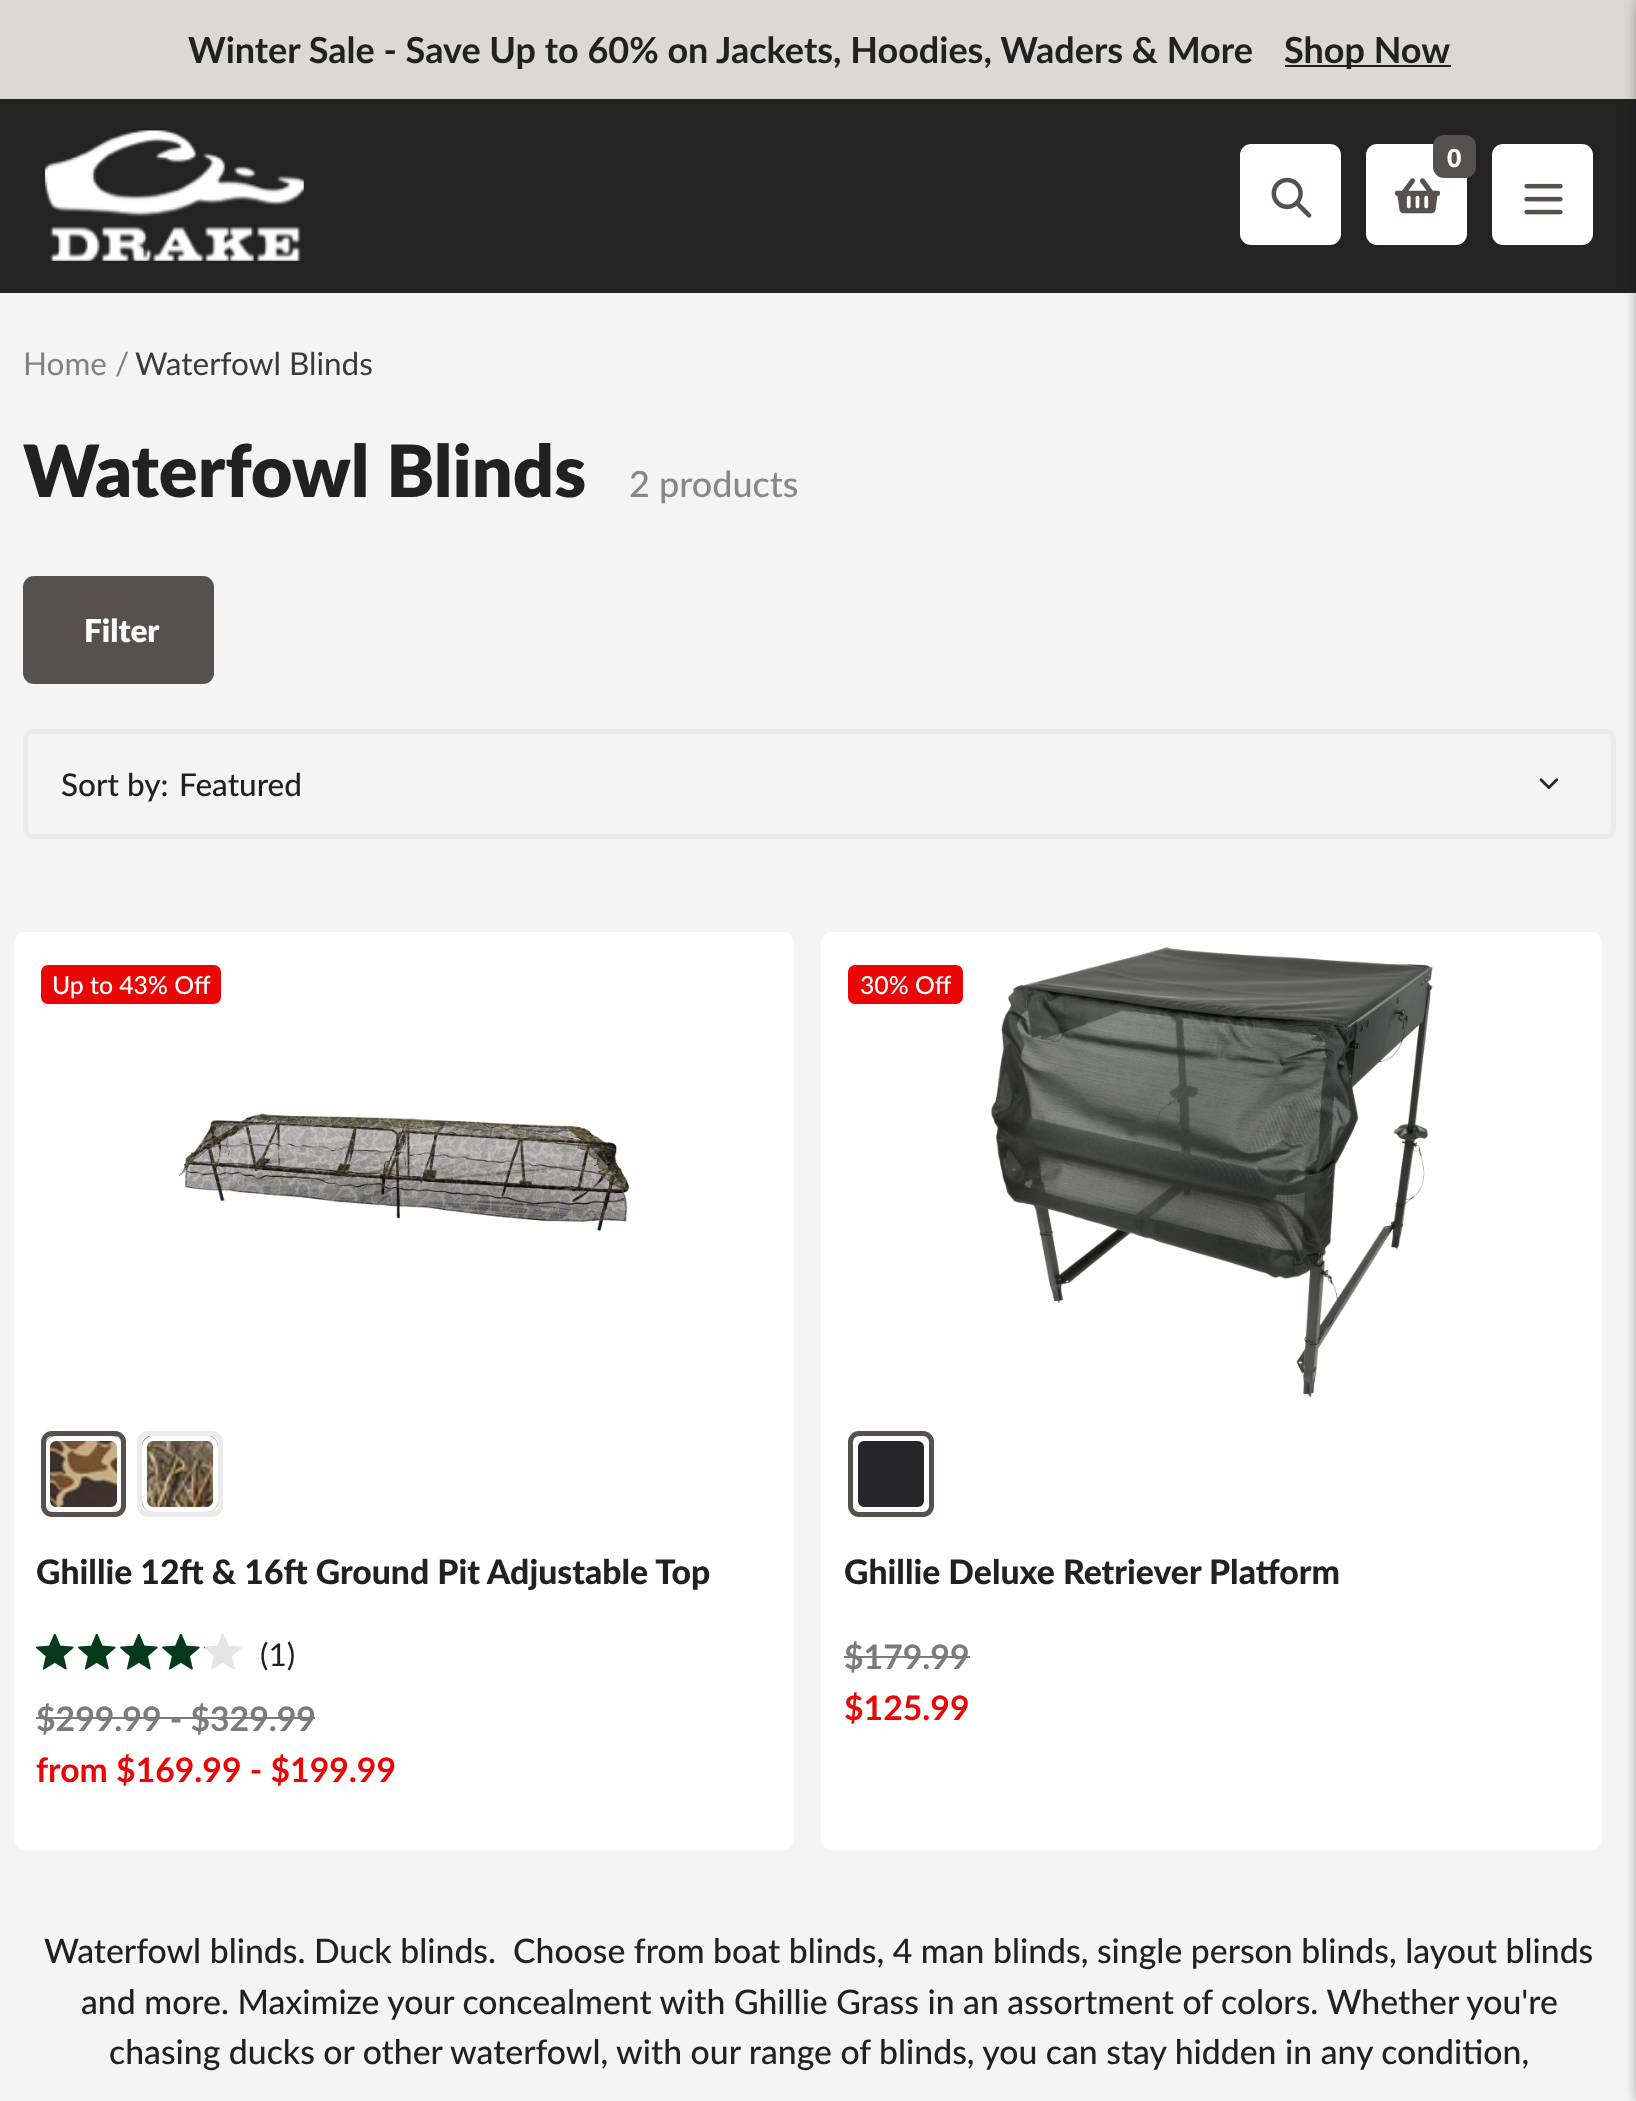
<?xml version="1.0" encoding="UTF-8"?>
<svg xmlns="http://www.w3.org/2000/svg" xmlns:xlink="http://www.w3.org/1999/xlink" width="1636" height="2101">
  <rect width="100%" height="100%" fill="#f4f4f4" />
  <rect width="1636" height="99" fill="#dad9d4" />
  <rect x="1285" y="65" width="166" height="2" fill="#212121" />
  <rect y="99" width="1636" height="194" fill="#232323" />
  <rect x="25.5" y="731.5" width="1588" height="105" rx="8.5" fill="none" stroke="#ebebeb" stroke-width="5" />
  <rect x="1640" width="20" height="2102" fill="#000000" fill-opacity="0.5" filter="blur(8px)" />
  <image x="45" y="130" width="259" height="131" xlink:href="image1.png" />
  <rect x="1240" y="144" width="101" height="101" rx="11" fill="#ffffff" />
  <image x="1271" y="177" width="41" height="41" xlink:href="image2.png" />
  <rect x="1366" y="144" width="101" height="101" rx="11" fill="#ffffff" />
  <rect x="1433" y="135" width="43" height="43" rx="11" fill="#584f4f" />
  <image x="1395" y="178" width="45" height="36" xlink:href="image3.png" />
  <rect x="1492" y="144" width="101" height="101" rx="11" fill="#ffffff" />
  <image x="1524" y="183" width="39" height="32" xlink:href="image4.png" />
  <rect x="23" y="576" width="191" height="108" rx="11" fill="#584f4f" />
  <image x="1539" y="778" width="20" height="11" xlink:href="image5.png" />
  <rect x="14" y="932" width="780" height="918" rx="11" fill="#ffffff" />
  <rect x="42" y="966" width="178" height="37" rx="6" fill="#ea0606" stroke="#ea0606" stroke-width="2" />
  <image x="179" y="1113" width="450" height="118" xlink:href="image6.png" />
  <image x="46" y="1436" width="75" height="76" xlink:href="image7.png" />
  <rect x="47.5" y="1438.5" width="72" height="71" rx="8.5" fill="none" stroke="#ffffff" stroke-width="5" />
  <rect x="43.5" y="1433.5" width="80" height="81" rx="8.5" fill="none" stroke="#584f4f" stroke-width="5" />
  <image x="142" y="1436" width="76" height="76" xlink:href="image8.png" />
  <rect x="144.5" y="1438.5" width="71" height="71" rx="8.5" fill="none" stroke="#ffffff" stroke-width="5" />
  <rect x="139.5" y="1433.5" width="81" height="81" rx="8.5" fill="none" stroke="#ebebeb" stroke-width="5" />
  <image x="36" y="1633" width="206" height="37" xlink:href="image9.png" />
  <image x="36" y="1634" width="169" height="36" xlink:href="image10.png" />
  <rect x="36" y="1717" width="279" height="2" fill="#7b7b7b" />
  <rect x="821" y="932" width="781" height="918" rx="11" fill="#ffffff" />
  <rect x="849" y="966" width="113" height="37" rx="6" fill="#ea0606" stroke="#ea0606" stroke-width="2" />
  <image x="991" y="947" width="442" height="450" xlink:href="image11.png" />
  <rect x="855.5" y="1438.5" width="71" height="71" rx="8.5" fill="#262628" stroke="#ffffff" stroke-width="5" />
  <rect x="850.5" y="1433.5" width="81" height="81" rx="8.5" fill="none" stroke="#584f4f" stroke-width="5" />
  <rect x="844" y="1656" width="126" height="2" fill="#7b7b7b" />
  <text x="188" y="63" style="font-family: Lato; font-size: 36px; font-weight: bold; fill: #212121">Winter Sale - Save Up to 60% on Jackets, Hoodies, Waders &amp; More</text>
  <text x="1284" y="63" style="font-family: Lato; font-size: 36px; font-weight: bold; fill: #212121">Shop Now</text>
  <text x="1447" y="167" style="font-family: Lato; font-size: 24.75px; font-weight: 900; fill: #ffffff">0</text>
  <text x="23" y="375" style="font-family: Lato; font-size: 31.5px; fill: #828282">Home /</text>
  <text x="135" y="375" style="font-family: Lato; font-size: 31.5px; fill: #3a3a3a">Waterfowl Blinds</text>
  <text x="23" y="497" style="font-family: Lato; font-size: 72px; font-weight: 900; fill: #212121">Waterfowl Blinds</text>
  <text x="629" y="497" style="font-family: Lato; font-size: 36px; font-weight: 500; fill: #888888">2 products</text>
  <text x="84" y="642" style="font-family: Lato; font-size: 31.5px; font-weight: 900; fill: #ffffff">Filter</text>
  <text x="61" y="796" style="font-family: Lato; font-size: 31.5px; font-weight: 500; fill: #212121">Sort by:</text>
  <text x="179" y="796" style="font-family: Lato; font-size: 31.5px; font-weight: 500; fill: #212121">Featured</text>
  <text x="52" y="994" style="font-family: Lato; font-size: 24.75px; font-weight: 500; fill: #ffffff">Up to 43% Off</text>
  <text x="36" y="1584" style="font-family: 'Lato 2'; font-size: 33.75px; font-weight: 900; fill: #212121">Ghillie 12ft &amp; 16ft Ground Pit Adjustable Top</text>
  <text x="260" y="1666" style="font-family: Lato; font-size: 31.5px; fill: #212121">(1)</text>
  <text x="36" y="1731" style="font-family: Lato; font-size: 33.75px; font-weight: bold; fill: #7b7b7b">$299.99 - $329.99</text>
  <text x="36" y="1782" style="font-family: Lato; font-size: 33.75px; font-weight: bold; fill: #ea0606">from $169.99 - $199.99</text>
  <text x="860" y="994" style="font-family: Lato; font-size: 24.75px; font-weight: 500; fill: #ffffff">30% Off</text>
  <text x="844" y="1584" style="font-family: 'Lato 2'; font-size: 33.75px; font-weight: 900; fill: #212121">Ghillie Deluxe Retriever Platform</text>
  <text x="844" y="1669" style="font-family: Lato; font-size: 33.75px; font-weight: bold; fill: #7b7b7b">$179.99</text>
  <text x="844" y="1720" style="font-family: Lato; font-size: 33.75px; font-weight: bold; fill: #ea0606">$125.99</text>
  <text x="44" y="1963" style="font-family: Lato; font-size: 33.75px; font-weight: 500; fill: #212121" xml:space="preserve">Waterfowl blinds. Duck blinds.  Choose from boat blinds, 4 man blinds, single person blinds, layout blinds</text>
  <text x="81" y="2014" style="font-family: Lato; font-size: 33.75px; font-weight: 500; fill: #212121">and more. Maximize your concealment with Ghillie Grass in an assortment of colors. Whether you're</text>
  <text x="109" y="2064" style="font-family: Lato; font-size: 33.75px; font-weight: 500; fill: #212121">chasing ducks or other waterfowl, with our range of blinds, you can stay hidden in any condition,</text>
</svg>
